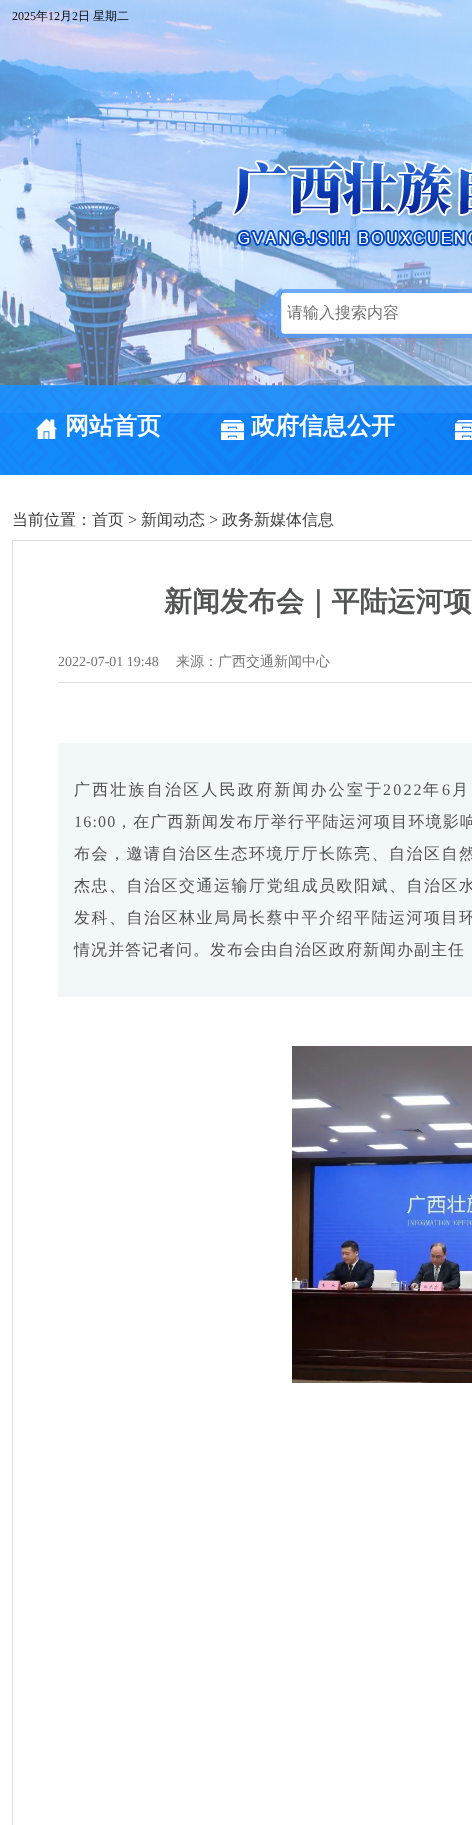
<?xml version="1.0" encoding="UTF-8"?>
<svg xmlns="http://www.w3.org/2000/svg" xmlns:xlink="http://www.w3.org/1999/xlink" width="472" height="1825">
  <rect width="100%" height="100%" fill="#ffffff" />
  <image x="0" y="0" width="472" height="386" xlink:href="image1.png" />
  <image x="232" y="160" width="240" height="91" xlink:href="image2.png" />
  <image x="256" y="287" width="216" height="52" xlink:href="image3.png" />
  <rect x="282" y="293" width="190" height="40" fill="#ffffff" />
  <image x="0" y="385" width="472" height="90" xlink:href="image4.png" />
  <image x="35" y="418" width="22" height="21" xlink:href="image5.png" />
  <image x="221" y="420" width="23" height="20" xlink:href="image6.png" />
  <image x="455" y="420" width="17" height="20" xlink:href="image7.png" />
  <rect x="12.5" y="540.5" width="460" height="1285" fill="none" stroke="#dfdede" />
  <rect x="58" y="682" width="414" height="1" fill="#dfdede" />
  <rect x="58" y="743" width="414" height="254" fill="#f2f7fa" />
  <image x="292" y="1046" width="180" height="337" xlink:href="image8.png" />
  <text x="12" y="20" style="font-family: Liberation Serif; font-size: 12px; fill: #080808">2025</text>
  <text x="36" y="20" style="font-family: WenQuanYi Zen Hei; font-size: 12px; font-weight: 500; fill: #080808">年</text>
  <text x="48" y="20" style="font-family: Liberation Serif; font-size: 12px; fill: #080808">12</text>
  <text x="60" y="20" style="font-family: WenQuanYi Zen Hei; font-size: 12px; font-weight: 500; fill: #080808">月</text>
  <text x="72" y="20" style="font-family: Liberation Serif; font-size: 12px; fill: #080808">2</text>
  <text x="78" y="20" style="font-family: WenQuanYi Zen Hei; font-size: 12px; font-weight: 500; fill: #080808">日</text>
  <text x="93" y="20" style="font-family: WenQuanYi Zen Hei; font-size: 12px; font-weight: 500; fill: #080808">星期二</text>
  <text x="287" y="318" style="font-family: WenQuanYi Zen Hei; font-size: 16px; font-weight: 500; fill: #757575">请输入搜索内容</text>
  <text x="65" y="434" style="font-family: WenQuanYi Zen Hei; font-size: 24px; font-weight: bold; fill: #ffffff">网站首页</text>
  <text x="251" y="434" style="font-family: WenQuanYi Zen Hei; font-size: 24px; font-weight: bold; fill: #ffffff">政府信息公开</text>
  <text x="12" y="525" style="font-family: WenQuanYi Zen Hei; font-size: 16px; font-weight: 500; fill: #3b3b3b">当前位置：</text>
  <text x="92" y="525" style="font-family: WenQuanYi Zen Hei; font-size: 16px; font-weight: 500; fill: #434242">首页</text>
  <text x="128" y="525" style="font-family: Liberation Serif; font-size: 16px; fill: #3b3b3b">&gt;</text>
  <text x="141" y="525" style="font-family: WenQuanYi Zen Hei; font-size: 16px; font-weight: 500; fill: #434242">新闻动态</text>
  <text x="209" y="525" style="font-family: Liberation Serif; font-size: 16px; fill: #3b3b3b">&gt;</text>
  <text x="222" y="525" style="font-family: WenQuanYi Zen Hei; font-size: 16px; font-weight: 500; fill: #434242">政务新媒体信息</text>
  <text x="164" y="611" style="font-family: WenQuanYi Zen Hei; font-size: 28px; font-weight: bold; fill: #525353">新闻发布会｜平陆运河项</text>
  <text x="58" y="666" style="font-family: Liberation Serif; font-size: 14px; fill: #757575">2022-07-01 19:48</text>
  <text x="176" y="666" style="font-family: WenQuanYi Zen Hei; font-size: 14px; font-weight: 500; fill: #757575">来源：广西交通新闻中心</text>
  <text x="74" y="795" style="font-family: WenQuanYi Zen Hei; font-size: 16px; font-weight: 500; letter-spacing: 2.2px; fill: #525353">广西壮族自治区人民政府新闻办公室于</text>
  <text x="383" y="795" style="font-family: Liberation Serif; font-size: 16px; letter-spacing: 2.2px; fill: #525353">2022</text>
  <text x="423" y="795" style="font-family: WenQuanYi Zen Hei; font-size: 16px; font-weight: 500; letter-spacing: 2.2px; fill: #525353">年</text>
  <text x="442" y="795" style="font-family: Liberation Serif; font-size: 16px; letter-spacing: 2.2px; fill: #525353">6</text>
  <text x="452" y="795" style="font-family: WenQuanYi Zen Hei; font-size: 16px; font-weight: 500; letter-spacing: 2.2px; fill: #525353">月</text>
  <text x="74" y="827" style="font-family: Liberation Serif; font-size: 16px; letter-spacing: 1.2px; fill: #525353">16:00</text>
  <text x="116" y="827" style="font-family: WenQuanYi Zen Hei; font-size: 16px; font-weight: 500; letter-spacing: 1.2px; fill: #525353">，在广西新闻发布厅举行平陆运河项目环境影响</text>
  <text x="74" y="859" style="font-family: WenQuanYi Zen Hei; font-size: 16px; font-weight: 500; letter-spacing: 1.5px; fill: #525353">布会，邀请自治区生态环境厅厅长陈亮、自治区自然</text>
  <text x="74" y="891" style="font-family: WenQuanYi Zen Hei; font-size: 16px; font-weight: 500; letter-spacing: 1.5px; fill: #525353">杰忠、自治区交通运输厅党组成员欧阳斌、自治区水</text>
  <text x="74" y="923" style="font-family: WenQuanYi Zen Hei; font-size: 16px; font-weight: 500; letter-spacing: 1.5px; fill: #525353">发科、自治区林业局局长蔡中平介绍平陆运河项目环</text>
  <text x="74" y="955" style="font-family: WenQuanYi Zen Hei; font-size: 16px; font-weight: 500; letter-spacing: 1px; fill: #525353">情况并答记者问。发布会由自治区政府新闻办副主任</text>
</svg>
